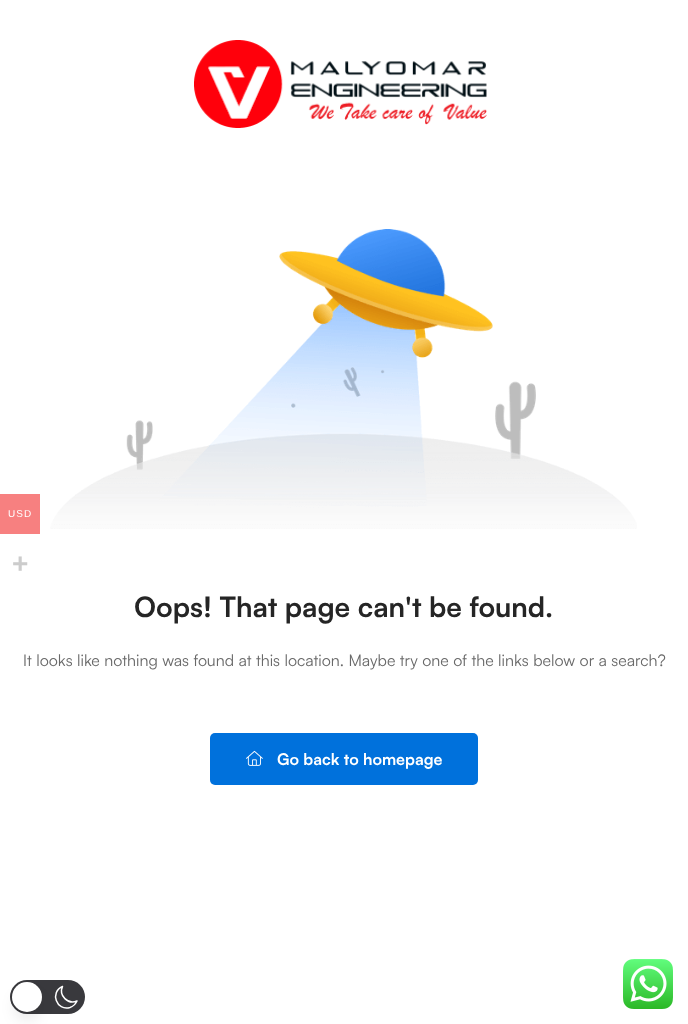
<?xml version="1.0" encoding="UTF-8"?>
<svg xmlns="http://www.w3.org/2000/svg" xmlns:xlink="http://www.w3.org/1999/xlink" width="688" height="1024">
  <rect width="100%" height="100%" fill="#ffffff" />
  <rect y="494" width="40" height="40" fill="#f78080" />
  <image x="194" y="40" width="293" height="88" xlink:href="image1.png" />
  <image x="50" y="229" width="587" height="300" xlink:href="image2.png" />
  <rect x="210" y="733" width="268" height="52" rx="5" fill="#0071dc" />
  <image x="246" y="750" width="17" height="16" xlink:href="image3.png" />
  <rect x="10" y="980" width="75" height="34" rx="17" fill="#39393d" />
  <path d="M 77 1001 c -9 4 -18.5 -5.5 -14.5 -14.5 c -13 5.5 -6 25 7.5 21 c 3 -1 5.5 -3.5 7 -6.5 z" fill="none" stroke="#ffffff" stroke-width="1.5" stroke-linecap="round" stroke-linejoin="round" />
  <rect x="15" y="995" width="24" height="24" rx="12" fill="#000000" fill-opacity="0.1" filter="blur(7.5px)" />
  <circle cx="27" cy="997" r="15" fill="#ffffff" />
  <image x="623" y="959" width="50" height="50" xlink:href="image4.png" />
  <text x="8" y="517" style="font-family: Liberation Sans; font-size: 10px; letter-spacing: 1px; fill: #ffffff">USD</text>
  <text x="12" y="573" style="font-family: Liberation Sans; font-size: 28px; font-weight: bold; fill: #cccccc">+</text>
  <text x="134" y="617" style="font-family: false; font-size: 28px; font-weight: bold; fill: #252525">Oops! That page can't be found.</text>
  <text x="23" y="666" style="font-family: false; font-size: 16px; fill: #696969">It looks like nothing was found at this location. Maybe try one of the links below or a search?</text>
  <text x="277" y="765" style="font-family: false; font-size: 16px; font-weight: bold; fill: #ffffff">Go back to homepage</text>
</svg>
